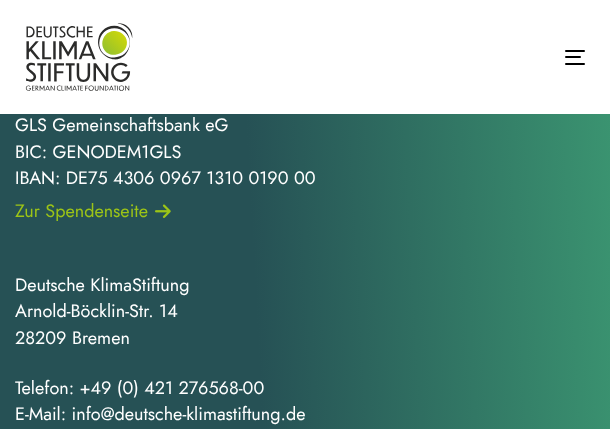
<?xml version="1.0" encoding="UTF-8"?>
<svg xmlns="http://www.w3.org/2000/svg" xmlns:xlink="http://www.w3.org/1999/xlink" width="610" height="429">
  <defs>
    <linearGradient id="g1" gradientUnits="userSpaceOnUse" x1="-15" y1="282" x2="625" y2="248"><stop offset="0.42" stop-color="#265155" /><stop offset="1" stop-color="#3b9571" /></linearGradient>
  </defs>
  <rect width="100%" height="100%" fill="#ffffff" />
  <image x="25" y="23" width="108" height="68" xlink:href="image1.png" />
  <rect x="565" y="50" width="20" height="2" rx="1" fill="#000000" />
  <rect x="565" y="56" width="16" height="2" rx="1" fill="#000000" />
  <rect x="565" y="63" width="20" height="2" rx="1" fill="#000000" />
  <rect y="114" width="610" height="315" fill="url(#g1)" />
  <image x="155" y="204" width="16" height="14" xlink:href="image2.png" />
  <text x="15" y="131" style="font-family: Jost; font-size: 18px; fill: #ffffff">GLS Gemeinschaftsbank eG</text>
  <text x="15" y="158" style="font-family: Jost; font-size: 18px; fill: #ffffff">BIC: GENODEM1GLS</text>
  <text x="15" y="184" style="font-family: Jost; font-size: 18px; fill: #ffffff">IBAN: DE75 4306 0967 1310 0190 00</text>
  <text x="15" y="217" style="font-family: Jost; font-size: 18px; fill: #9cc417">Zur Spendenseite</text>
  <text x="15" y="291" style="font-family: Jost; font-size: 18px; fill: #ffffff">Deutsche KlimaStiftung</text>
  <text x="15" y="317" style="font-family: Jost; font-size: 18px; fill: #ffffff">Arnold-Böcklin-Str. 14</text>
  <text x="15" y="344" style="font-family: Jost; font-size: 18px; fill: #ffffff">28209 Bremen</text>
  <text x="15" y="394" style="font-family: Jost; font-size: 18px; fill: #ffffff">Telefon: +49 (0) 421 276568-00</text>
  <text x="15" y="420" style="font-family: Jost; font-size: 18px; fill: #ffffff">E-Mail: info@deutsche-klimastiftung.de</text>
</svg>
